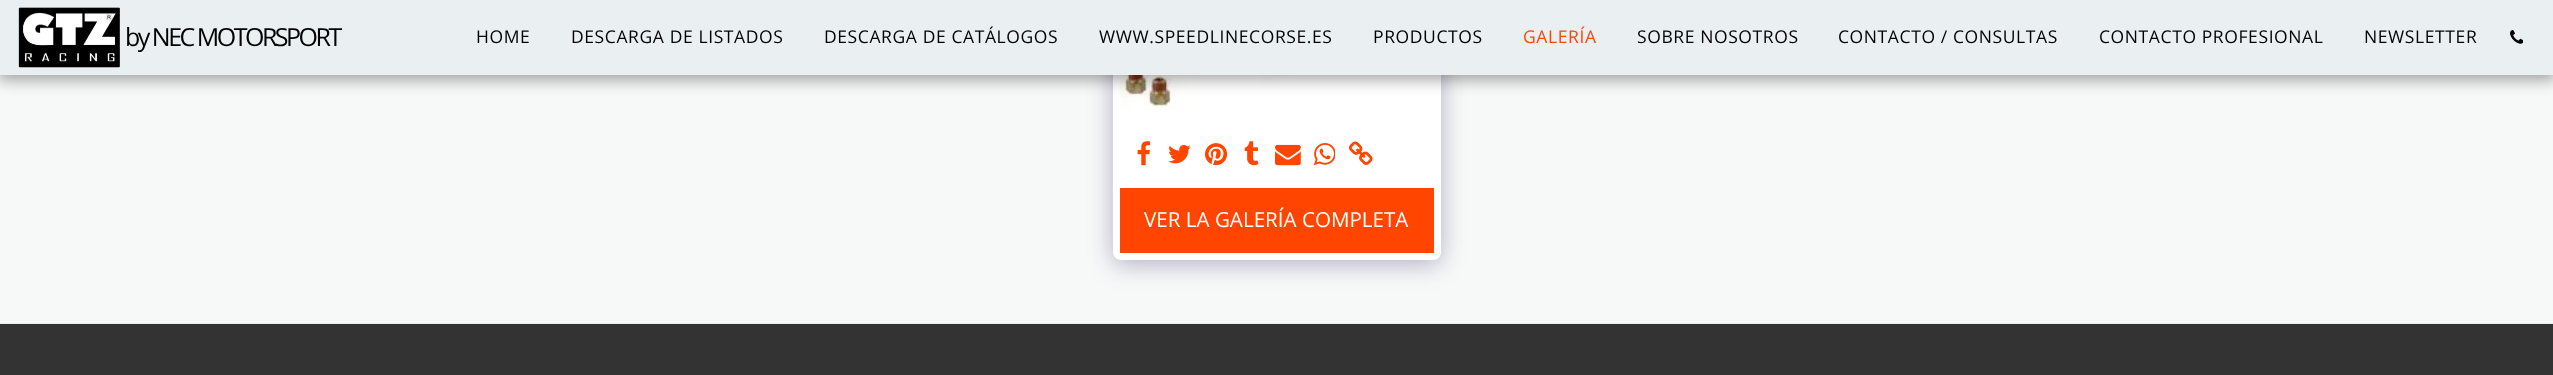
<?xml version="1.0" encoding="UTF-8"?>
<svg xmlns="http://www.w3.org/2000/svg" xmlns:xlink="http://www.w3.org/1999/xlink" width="2553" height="375">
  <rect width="100%" height="100%" fill="#f7f9f8" />
  <rect x="1113" y="-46" width="328" height="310" rx="8" fill="#4d3f7a" fill-opacity="0.4" filter="blur(12.5px)" />
  <rect x="1113" y="-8" width="328" height="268" rx="8" fill="#ffffff" />
  <image x="1120" y="75" width="173" height="35" xlink:href="image3.png" />
  <rect x="-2" width="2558" height="80" fill="#000000" fill-opacity="0.35" filter="blur(7.5px)" />
  <rect width="2553" height="75" fill="#eaeff2" />
  <image x="18" y="7" width="102" height="61" xlink:href="image1.png" />
  <image x="2510" y="30" width="13" height="14" xlink:href="image2.png" />
  <image x="1137" y="141" width="14" height="25" xlink:href="image4.png" />
  <image x="1168" y="144" width="23" height="20" xlink:href="image5.png" />
  <image x="1205" y="143" width="23" height="23" xlink:href="image6.png" />
  <image x="1244" y="141" width="15" height="25" xlink:href="image7.png" />
  <image x="1275" y="144" width="26" height="22" xlink:href="image8.png" />
  <image x="1314" y="143" width="21" height="23" xlink:href="image9.png" />
  <image x="1349" y="141" width="24" height="24" xlink:href="image10.png" />
  <rect x="1120" y="188" width="314" height="65" fill="#ff4500" />
  <rect y="323" width="2553" height="1" fill="#eaeff2" />
  <rect y="324" width="2553" height="51" fill="#333333" />
  <text x="125" y="46" style="font-family: Open Sans; font-size: 25px; letter-spacing: -2.5px; fill: #000000">by NEC MOTORSPORT</text>
  <text x="476" y="43" style="font-family: Open Sans; font-size: 17.5px; letter-spacing: 0.6px; fill: #000000">HOME</text>
  <text x="571" y="43" style="font-family: Open Sans; font-size: 17.5px; letter-spacing: 0.6px; fill: #000000">DESCARGA DE LISTADOS</text>
  <text x="824" y="43" style="font-family: Open Sans; font-size: 17.5px; letter-spacing: 0.6px; fill: #000000">DESCARGA DE CATÁLOGOS</text>
  <text x="1099" y="43" style="font-family: Open Sans; font-size: 17.5px; letter-spacing: 0.6px; fill: #000000">WWW.SPEEDLINECORSE.ES</text>
  <text x="1373" y="43" style="font-family: Open Sans; font-size: 17.5px; letter-spacing: 0.6px; fill: #000000">PRODUCTOS</text>
  <text x="1523" y="43" style="font-family: Open Sans; font-size: 17.5px; letter-spacing: 0.6px; fill: #ff4500">GALERÍA</text>
  <text x="1637" y="43" style="font-family: Open Sans; font-size: 17.5px; letter-spacing: 0.6px; fill: #000000">SOBRE NOSOTROS</text>
  <text x="1838" y="43" style="font-family: Open Sans; font-size: 17.5px; letter-spacing: 0.6px; fill: #000000">CONTACTO / CONSULTAS</text>
  <text x="2099" y="43" style="font-family: Open Sans; font-size: 17.5px; letter-spacing: 0.6px; fill: #000000">CONTACTO PROFESIONAL</text>
  <text x="2364" y="43" style="font-family: Open Sans; font-size: 17.5px; letter-spacing: 0.6px; fill: #000000">NEWSLETTER</text>
  <text x="1144" y="227" style="font-family: Open Sans; font-size: 20.6px; fill: #ffffff">VER LA GALERÍA COMPLETA</text>
</svg>
